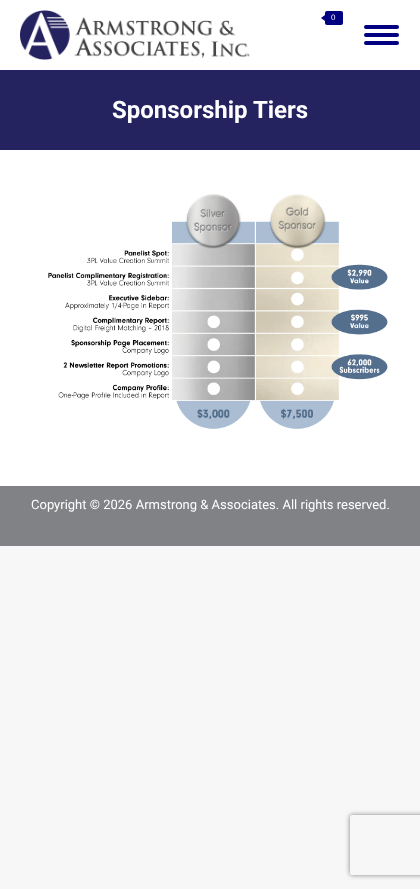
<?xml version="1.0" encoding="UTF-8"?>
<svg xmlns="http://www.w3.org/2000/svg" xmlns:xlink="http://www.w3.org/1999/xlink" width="420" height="889">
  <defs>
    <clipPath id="clip1"><path d="M 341 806 h 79 v 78 h -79 z m 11 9 h 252 c 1 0 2 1 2 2 v 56 c 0 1 -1 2 -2 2 h -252 c -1 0 -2 -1 -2 -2 v -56 c 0 -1 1 -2 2 -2 z" clip-rule="evenodd" /></clipPath>
  </defs>
  <rect width="100%" height="100%" fill="#f7f7f7" />
  <rect width="420" height="486" fill="#ffffff" />
  <image x="20" y="10" width="230" height="50" xlink:href="image1.png" />
  <rect x="325" y="11" width="18" height="14" rx="2" fill="#000080" />
  <path d="M 325 15 v 6 l -4 -3 z" fill="#000080" />
  <rect x="364" y="25" width="35" height="4" rx="2" fill="#000080" />
  <rect x="364" y="33" width="35" height="4" rx="2" fill="#000080" />
  <rect x="364" y="41" width="35" height="4" rx="2" fill="#000080" />
  <rect y="70" width="420" height="80" fill="#252260" />
  <image x="48" y="194" width="340" height="235" xlink:href="image2.png" />
  <rect y="486" width="420" height="60" fill="#818286" />
  <g clip-path="url(#clip1)">
    <rect x="350" y="815" width="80" height="60" rx="2" fill="#808080" filter="blur(2.5px)" />
  </g>
  <text x="331" y="20" style="font-family: Liberation Sans; font-size: 8px; fill: #ffffff">0</text>
  <text x="112" y="118" style="font-family: Roboto; font-size: 24px; font-weight: bold; fill: #ffffff">Sponsorship Tiers</text>
  <text x="31" y="509" style="font-family: Roboto; font-size: 13px; fill: #ffffff">Copyright © 2026 Armstrong &amp; Associates. All rights reserved.</text>
</svg>
